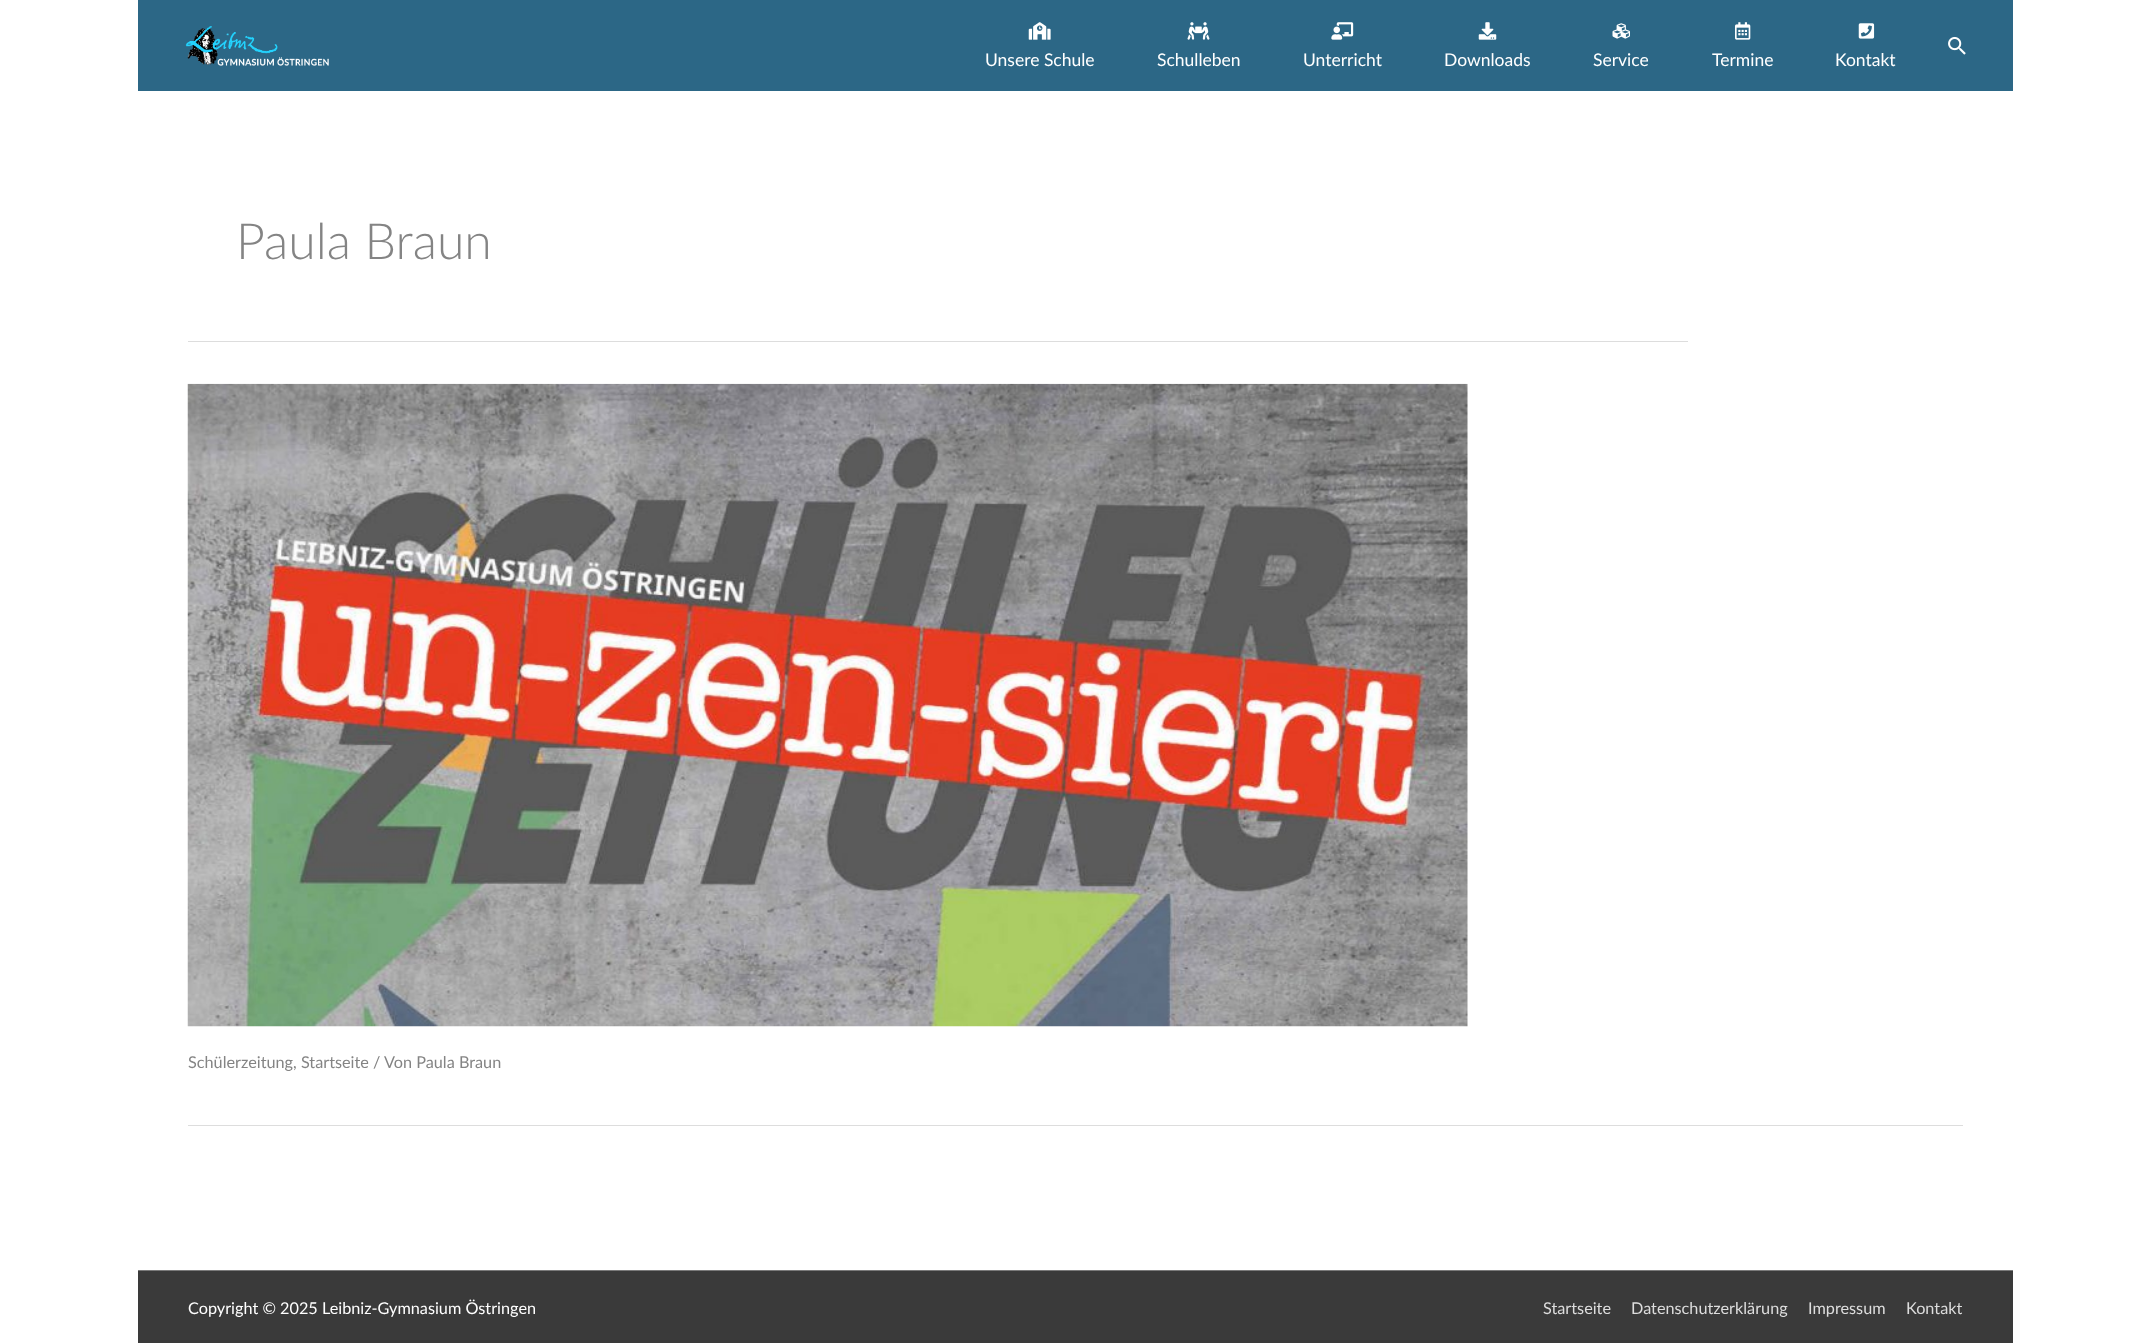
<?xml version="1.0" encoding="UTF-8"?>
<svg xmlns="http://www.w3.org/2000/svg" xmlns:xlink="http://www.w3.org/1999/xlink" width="2150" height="1343">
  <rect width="100%" height="100%" fill="#ffffff" />
  <rect x="138" width="1875" height="91" fill="#2c6786" />
  <image x="185" y="26" width="144" height="40" xlink:href="image1.png" />
  <image x="1948" y="36" width="18" height="19" xlink:href="image2.png" />
  <image x="1028" y="22" width="23" height="18" xlink:href="image3.png" />
  <image x="1187" y="22" width="23" height="18" xlink:href="image4.png" />
  <image x="1331" y="22" width="23" height="18" xlink:href="image5.png" />
  <image x="1478" y="22" width="19" height="18" xlink:href="image6.png" />
  <image x="1612" y="23" width="18" height="16" xlink:href="image7.png" />
  <image x="1735" y="22" width="16" height="18" xlink:href="image8.png" />
  <image x="1858" y="23" width="17" height="16" xlink:href="image9.png" />
  <rect x="188" y="341" width="1500" height="1" fill="#dddddd" />
  <rect x="188" y="1125" width="1775" height="1" fill="#dddddd" />
  <image x="187" y="383" width="1281" height="644" xlink:href="image10.png" />
  <rect x="138" y="1270" width="1875" height="1" fill="#7a7a7a" />
  <rect x="138" y="1271" width="1875" height="72" fill="#3a3a3a" />
  <text x="985" y="66" style="font-family: Lato; font-size: 17.5px; fill: #ffffff">Unsere Schule</text>
  <text x="1157" y="66" style="font-family: Lato; font-size: 17.5px; fill: #ffffff">Schulleben</text>
  <text x="1303" y="66" style="font-family: Lato; font-size: 17.5px; fill: #ffffff">Unterricht</text>
  <text x="1444" y="66" style="font-family: Lato; font-size: 17.5px; fill: #ffffff">Downloads</text>
  <text x="1593" y="66" style="font-family: Lato; font-size: 17.5px; fill: #ffffff">Service</text>
  <text x="1712" y="66" style="font-family: Lato; font-size: 17.5px; fill: #ffffff">Termine</text>
  <text x="1835" y="66" style="font-family: Lato; font-size: 17.5px; fill: #ffffff">Kontakt</text>
  <text x="236" y="259" style="font-family: Lato; font-size: 50px; font-weight: 300; fill: #848484">Paula Braun</text>
  <text x="188" y="1068" style="font-family: Lato; font-size: 16.25px; fill: #848484">Schülerzeitung, Startseite / Von Paula Braun</text>
  <text x="188" y="1314" style="font-family: Lato; font-size: 16.25px; fill: #ffffff">Copyright © 2025 Leibniz-Gymnasium Östringen</text>
  <text x="1543" y="1314" style="font-family: Lato; font-size: 16.25px; fill: #dddddd">Startseite</text>
  <text x="1631" y="1314" style="font-family: Lato; font-size: 16.25px; fill: #dddddd">Datenschutzerklärung</text>
  <text x="1808" y="1314" style="font-family: Lato; font-size: 16.25px; fill: #dddddd">Impressum</text>
  <text x="1906" y="1314" style="font-family: Lato; font-size: 16.25px; fill: #dddddd">Kontakt</text>
</svg>
